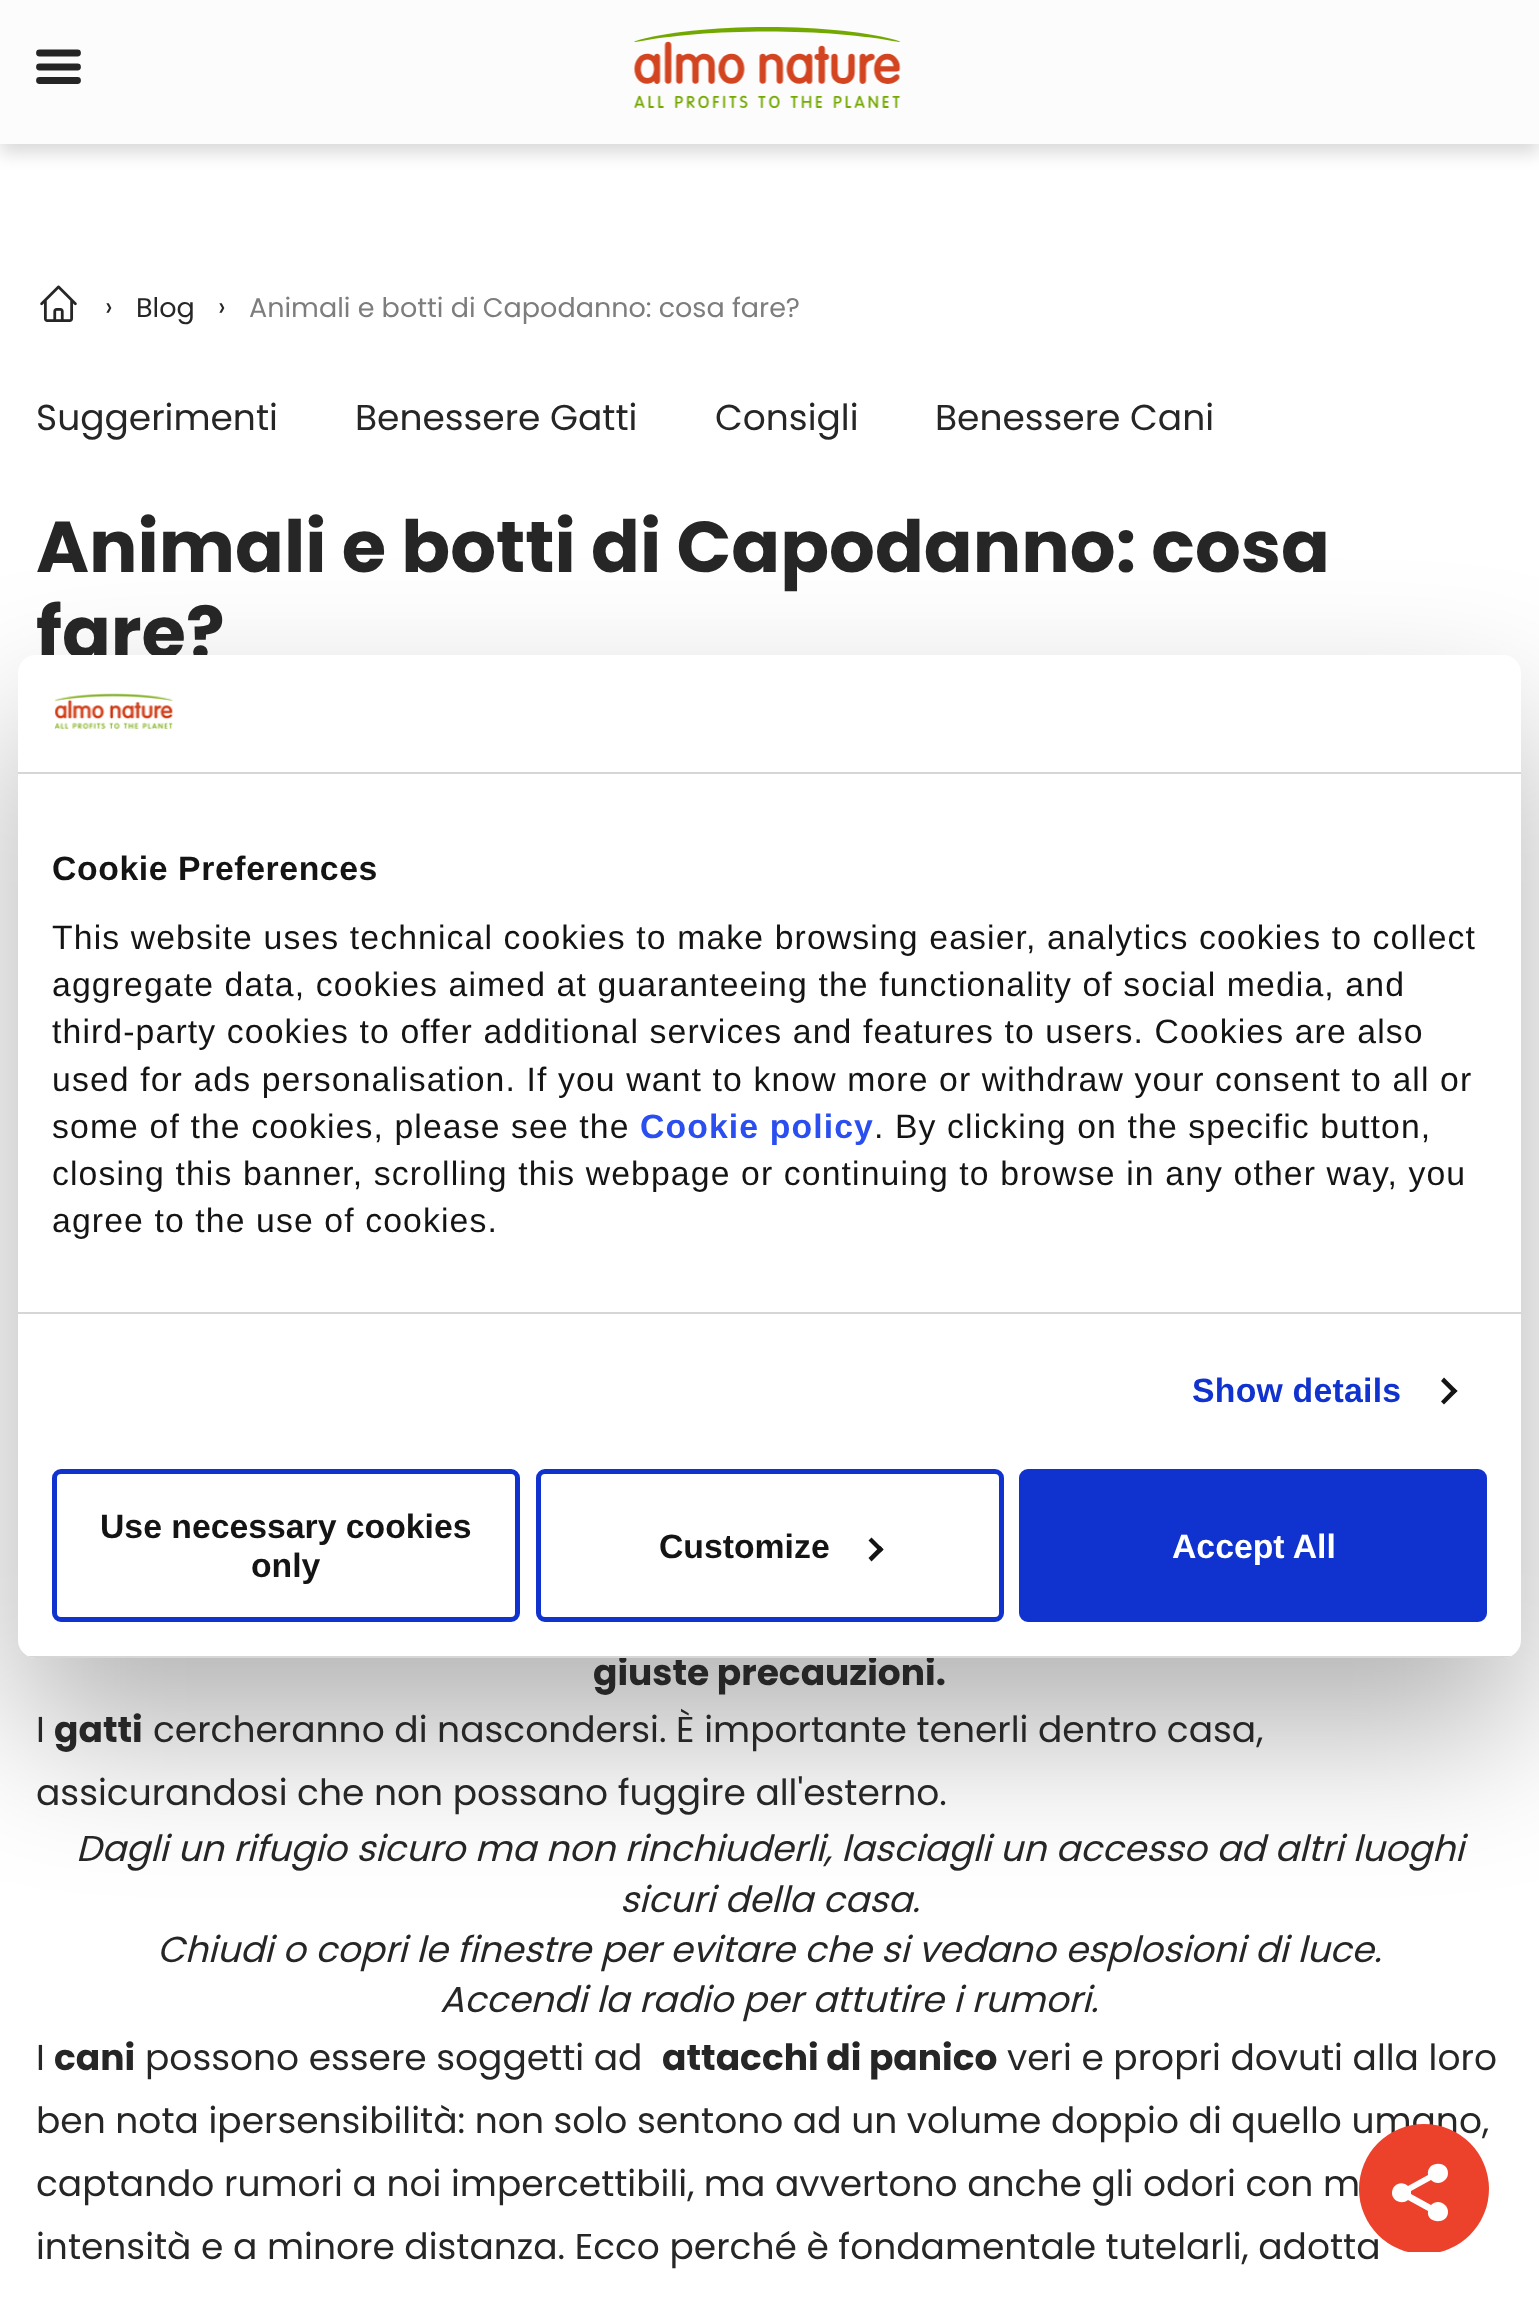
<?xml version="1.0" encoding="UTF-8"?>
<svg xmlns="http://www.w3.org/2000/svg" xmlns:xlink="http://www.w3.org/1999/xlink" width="1539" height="2311">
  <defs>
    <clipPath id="clip1"><rect x="1359" y="2124" width="131" height="128" /></clipPath>
    <clipPath id="clip2"><rect x="18" y="655" width="1503" height="1003" rx="18" /></clipPath>
  </defs>
  <rect width="100%" height="100%" fill="#ffffff" />
  <rect y="9" width="1539" height="144" fill="#000000" fill-opacity="0.15" filter="blur(9px)" />
  <rect width="1539" height="144" fill="#fcfcfc" />
  <path d="M 39.5 53 h 38 m -38 14 h 38 m -38 13.5 h 38" fill="none" stroke="#252525" stroke-width="6.8" stroke-linecap="round" />
  <image x="634" y="27" width="267" height="81" xlink:href="image1.png" />
  <image x="40" y="285" width="37" height="37" xlink:href="image2.png" />
  <rect x="18" y="727" width="1503" height="1003" rx="18" fill="#000000" fill-opacity="0.3" filter="blur(76.5px)" />
  <text x="105" y="316" style="font-family: Poppins; font-size: 27px; fill: #262626">›</text>
  <text x="136" y="317" style="font-family: Poppins; font-size: 27px; fill: #262626">Blog</text>
  <text x="218" y="316" style="font-family: Poppins; font-size: 27px; fill: #262626">›</text>
  <text x="249" y="317" style="font-family: Poppins; font-size: 27px; fill: #7d7d7d">Animali e botti di Capodanno: cosa fare?</text>
  <text x="36" y="430" style="font-family: Poppins; font-size: 36px; fill: #262626">Suggerimenti</text>
  <text x="355" y="430" style="font-family: Poppins; font-size: 36px; fill: #262626">Benessere Gatti</text>
  <text x="715" y="430" style="font-family: Poppins; font-size: 36px; fill: #262626">Consigli</text>
  <text x="935" y="430" style="font-family: Poppins; font-size: 36px; fill: #262626">Benessere Cani</text>
  <text x="36" y="572" style="font-family: Poppins; font-size: 72px; font-weight: bold; fill: #262626">Animali e botti di Capodanno: cosa</text>
  <text x="36" y="658" style="font-family: Poppins; font-size: 72px; font-weight: bold; fill: #262626">fare?</text>
  <text x="593" y="1685" style="font-family: Poppins; font-size: 36px; font-weight: bold; fill: #262626">giuste precauzioni.</text>
  <text x="36" y="1742" style="font-family: Poppins; font-size: 36px; fill: #262626">I</text>
  <text x="54" y="1742" style="font-family: Poppins; font-size: 36px; font-weight: bold; fill: #262626">gatti</text>
  <text x="153" y="1742" style="font-family: Poppins; font-size: 36px; fill: #262626">cercheranno di nascondersi. È importante tenerli dentro casa,</text>
  <text x="36" y="1805" style="font-family: Poppins; font-size: 36px; fill: #262626">assicurandosi che non possano fuggire all'esterno.</text>
  <text x="76" y="1861" style="font-family: Poppins; font-size: 36px; font-style: italic; fill: #262626">Dagli un rifugio sicuro ma non rinchiuderli, lasciagli un accesso ad altri luoghi</text>
  <text x="620" y="1912" style="font-family: Poppins; font-size: 36px; font-style: italic; fill: #262626">sicuri della casa.</text>
  <text x="157" y="1962" style="font-family: Poppins; font-size: 36px; font-style: italic; fill: #262626">Chiudi o copri le finestre per evitare che si vedano esplosioni di luce.</text>
  <text x="440" y="2012" style="font-family: Poppins; font-size: 36px; font-style: italic; fill: #262626">Accendi la radio per attutire i rumori.</text>
  <text x="36" y="2070" style="font-family: Poppins; font-size: 36px; fill: #262626">I</text>
  <text x="54" y="2070" style="font-family: Poppins; font-size: 36px; font-weight: bold; fill: #262626">cani</text>
  <text x="145" y="2070" style="font-family: Poppins; font-size: 36px; fill: #262626">possono essere soggetti ad</text>
  <text x="662" y="2070" style="font-family: Poppins; font-size: 36px; font-weight: bold; fill: #262626">attacchi di panico</text>
  <text x="1007" y="2070" style="font-family: Poppins; font-size: 36px; fill: #262626">veri e propri dovuti alla loro</text>
  <text x="36" y="2133" style="font-family: Poppins; font-size: 36px; fill: #262626">ben nota ipersensibilità: non solo sentono ad un volume doppio di quello umano,</text>
  <text x="36" y="2196" style="font-family: Poppins; font-size: 36px; fill: #262626">captando rumori a noi impercettibili, ma avvertono anche gli odori con m</text>
  <text x="36" y="2259" style="font-family: Poppins; font-size: 36px; fill: #262626">intensità e a minore distanza. Ecco perché è fondamentale tutelarli, adotta</text>
  <g clip-path="url(#clip1)">
    <circle cx="1424" cy="2189" r="65" fill="#ec422b" />
  </g>
  <path d="M 1392 2193 c 0 8 10 12 16 7 l 20 11 c -2 13 20 14 20 1 c 0 -3 -1 -5 -3 -7 c -4 -4 -10 -4 -14 0 l -20 -11 v -3 l 20 -11 c 4 4 10 4 14 0 c 2 -2 3 -4 3 -7 c 0 -13 -22 -12 -20 2 l -20 11 c -6 -6 -16 -2 -16 7 z" fill="#ffffff" />
  <rect x="18" y="655" width="1503" height="1003" rx="18" fill="#ffffff" />
  <rect x="18" y="772" width="1503" height="2" fill="#d6d6d6" />
  <image x="54" y="693" width="119" height="36" xlink:href="image3.png" />
  <rect x="18" y="1312" width="1503" height="2" fill="#d6d6d6" />
  <text x="52" y="880" style="font-family: Liberation Sans; font-size: 33.75px; font-weight: bold; letter-spacing: 0.6px; fill: #141414">Cookie Preferences</text>
  <text x="52" y="949" style="font-family: Liberation Sans; font-size: 33.75px; letter-spacing: 1.12px; fill: #141414">This website uses technical cookies to make browsing easier, analytics cookies to collect</text>
  <text x="52" y="996" style="font-family: Liberation Sans; font-size: 33.75px; letter-spacing: 1.12px; fill: #141414">aggregate data, cookies aimed at guaranteeing the functionality of social media, and</text>
  <text x="52" y="1043" style="font-family: Liberation Sans; font-size: 33.75px; letter-spacing: 1.12px; fill: #141414">third-party cookies to offer additional services and features to users. Cookies are also</text>
  <text x="52" y="1091" style="font-family: Liberation Sans; font-size: 33.75px; letter-spacing: 1.12px; fill: #141414">used for ads personalisation. If you want to know more or withdraw your consent to all or</text>
  <text x="52" y="1138" style="font-family: Liberation Sans; font-size: 33.75px; letter-spacing: 1.12px; fill: #141414">some of the cookies, please see the</text>
  <text x="640" y="1138" style="font-family: Liberation Sans; font-size: 33.75px; font-weight: bold; letter-spacing: 1.12px; fill: #2a4eef">Cookie policy</text>
  <text x="874" y="1138" style="font-family: Liberation Sans; font-size: 33.75px; letter-spacing: 1.12px; fill: #141414">. By clicking on the specific button,</text>
  <text x="52" y="1185" style="font-family: Liberation Sans; font-size: 33.75px; letter-spacing: 1.12px; fill: #141414">closing this banner, scrolling this webpage or continuing to browse in any other way, you</text>
  <text x="52" y="1232" style="font-family: Liberation Sans; font-size: 33.75px; letter-spacing: 1.12px; fill: #141414">agree to the use of cookies.</text>
  <text x="1192" y="1402" style="font-family: Liberation Sans; font-size: 33.75px; font-weight: bold; letter-spacing: 0.25px; fill: #1032cf">Show details</text>
  <path d="M 1444 1377.5 l 13.5 13.5 l -3.5 3 l -13 -13 z" fill="#141414" />
  <path d="M 1454 1388 l 3.5 3 l -13.5 13.5 l -3 -3 z" fill="#141414" />
  <g clip-path="url(#clip2)">
    <rect x="28" y="1656" width="1483" height="2" fill="#d6d6d6" />
  </g>
  <rect x="54.5" y="1471.5" width="463" height="148" rx="6.5" fill="none" stroke="#1032cf" stroke-width="5" />
  <text x="100" y="1538" style="font-family: Liberation Sans; font-size: 33.75px; font-weight: bold; fill: #141414">Use necessary cookies</text>
  <text x="251" y="1577" style="font-family: Liberation Sans; font-size: 33.75px; font-weight: bold; fill: #141414">only</text>
  <rect x="538.5" y="1471.5" width="463" height="148" rx="6.5" fill="none" stroke="#1032cf" stroke-width="5" />
  <text x="659" y="1558" style="font-family: Liberation Sans; font-size: 33.75px; font-weight: bold; fill: #141414">Customize</text>
  <path d="M 871.5 1537.5 l 12 12 l -3 3 l -12 -12 z" fill="#141414" />
  <path d="M 880.5 1546 l 3 3.5 l -12 12 l -3 -3.5 z" fill="#141414" />
  <rect x="1021.5" y="1471.5" width="463" height="148" rx="6.5" fill="#1032cf" stroke="#1032cf" stroke-width="5" />
  <text x="1172" y="1558" style="font-family: Liberation Sans; font-size: 33.75px; font-weight: bold; fill: #ffffff">Accept All</text>
</svg>
